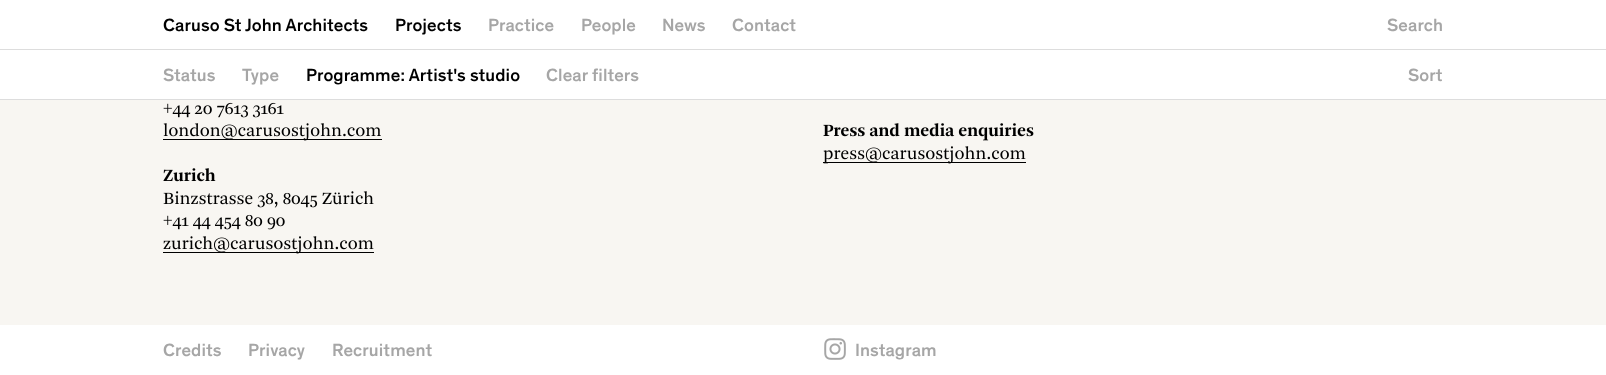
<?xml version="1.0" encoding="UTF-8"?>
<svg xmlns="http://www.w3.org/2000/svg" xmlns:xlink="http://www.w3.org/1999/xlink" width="1606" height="375">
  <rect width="100%" height="100%" fill="#f8f6f2" />
  <rect width="1606" height="49" fill="#ffffff" />
  <rect y="49" width="1606" height="1" fill="#dddddd" />
  <rect y="50" width="1606" height="49" fill="#ffffff" />
  <rect y="99" width="1606" height="1" fill="#dddddd" />
  <image x="163" y="102" width="121" height="16" xlink:href="image1.png" />
  <rect x="163" y="139" width="219" height="1" fill="#000000" />
  <image x="163" y="123" width="218" height="18" xlink:href="image2.png" />
  <image x="163" y="168" width="53" height="14" xlink:href="image3.png" />
  <image x="163" y="191" width="211" height="17" xlink:href="image4.png" />
  <image x="163" y="214" width="122" height="16" xlink:href="image5.png" />
  <rect x="163" y="252" width="211" height="1" fill="#000000" />
  <image x="163" y="236" width="211" height="18" xlink:href="image6.png" />
  <image x="823" y="123" width="211" height="18" xlink:href="image7.png" />
  <rect x="823" y="162" width="203" height="1" fill="#000000" />
  <image x="823" y="146" width="203" height="18" xlink:href="image8.png" />
  <rect y="325" width="1606" height="50" fill="#ffffff" />
  <image x="824" y="338" width="22" height="22" xlink:href="image9.png" />
  <text x="163" y="31" style="font-family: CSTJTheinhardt; font-size: 18px; font-weight: 500; letter-spacing: 0.1px; fill: #000000">Caruso St John Architects</text>
  <text x="395" y="31" style="font-family: CSTJTheinhardt; font-size: 18px; font-weight: 500; letter-spacing: 0.1px; fill: #000000">Projects</text>
  <text x="488" y="31" style="font-family: CSTJTheinhardt; font-size: 18px; font-weight: 500; letter-spacing: 0.1px; fill: #a6a6a6">Practice</text>
  <text x="581" y="31" style="font-family: CSTJTheinhardt; font-size: 18px; font-weight: 500; letter-spacing: 0.1px; fill: #a6a6a6">People</text>
  <text x="662" y="31" style="font-family: CSTJTheinhardt; font-size: 18px; font-weight: 500; letter-spacing: 0.1px; fill: #a6a6a6">News</text>
  <text x="732" y="31" style="font-family: CSTJTheinhardt; font-size: 18px; font-weight: 500; letter-spacing: 0.1px; fill: #a6a6a6">Contact</text>
  <text x="1387" y="31" style="font-family: CSTJTheinhardt; font-size: 18px; font-weight: 500; letter-spacing: 0.1px; fill: #a6a6a6">Search</text>
  <text x="163" y="81" style="font-family: CSTJTheinhardt; font-size: 18px; font-weight: 500; letter-spacing: 0.1px; fill: #a6a6a6">Status</text>
  <text x="242" y="81" style="font-family: CSTJTheinhardt; font-size: 18px; font-weight: 500; letter-spacing: 0.1px; fill: #a6a6a6">Type</text>
  <text x="306" y="81" style="font-family: CSTJTheinhardt; font-size: 18px; font-weight: 500; letter-spacing: 0.1px; fill: #000000">Programme: Artist's studio</text>
  <text x="546" y="81" style="font-family: CSTJTheinhardt; font-size: 18px; font-weight: 500; letter-spacing: 0.1px; fill: #a6a6a6">Clear</text>
  <text x="592" y="81" style="font-family: CSTJTheinhardt; font-size: 18px; font-weight: 500; letter-spacing: 0.1px; fill: #a6a6a6">filters</text>
  <text x="1408" y="81" style="font-family: CSTJTheinhardt; font-size: 18px; font-weight: 500; letter-spacing: 0.1px; fill: #a6a6a6">Sort</text>
  <text x="163" y="356" style="font-family: CSTJTheinhardt; font-size: 18px; font-weight: 500; letter-spacing: 0.1px; fill: #a6a6a6">Credits</text>
  <text x="248" y="356" style="font-family: CSTJTheinhardt; font-size: 18px; font-weight: 500; letter-spacing: 0.1px; fill: #a6a6a6">Privacy</text>
  <text x="332" y="356" style="font-family: CSTJTheinhardt; font-size: 18px; font-weight: 500; letter-spacing: 0.1px; fill: #a6a6a6">Recruitment</text>
  <text x="855" y="356" style="font-family: CSTJTheinhardt; font-size: 18px; font-weight: 500; letter-spacing: 0.1px; fill: #a6a6a6">Instagram</text>
</svg>
